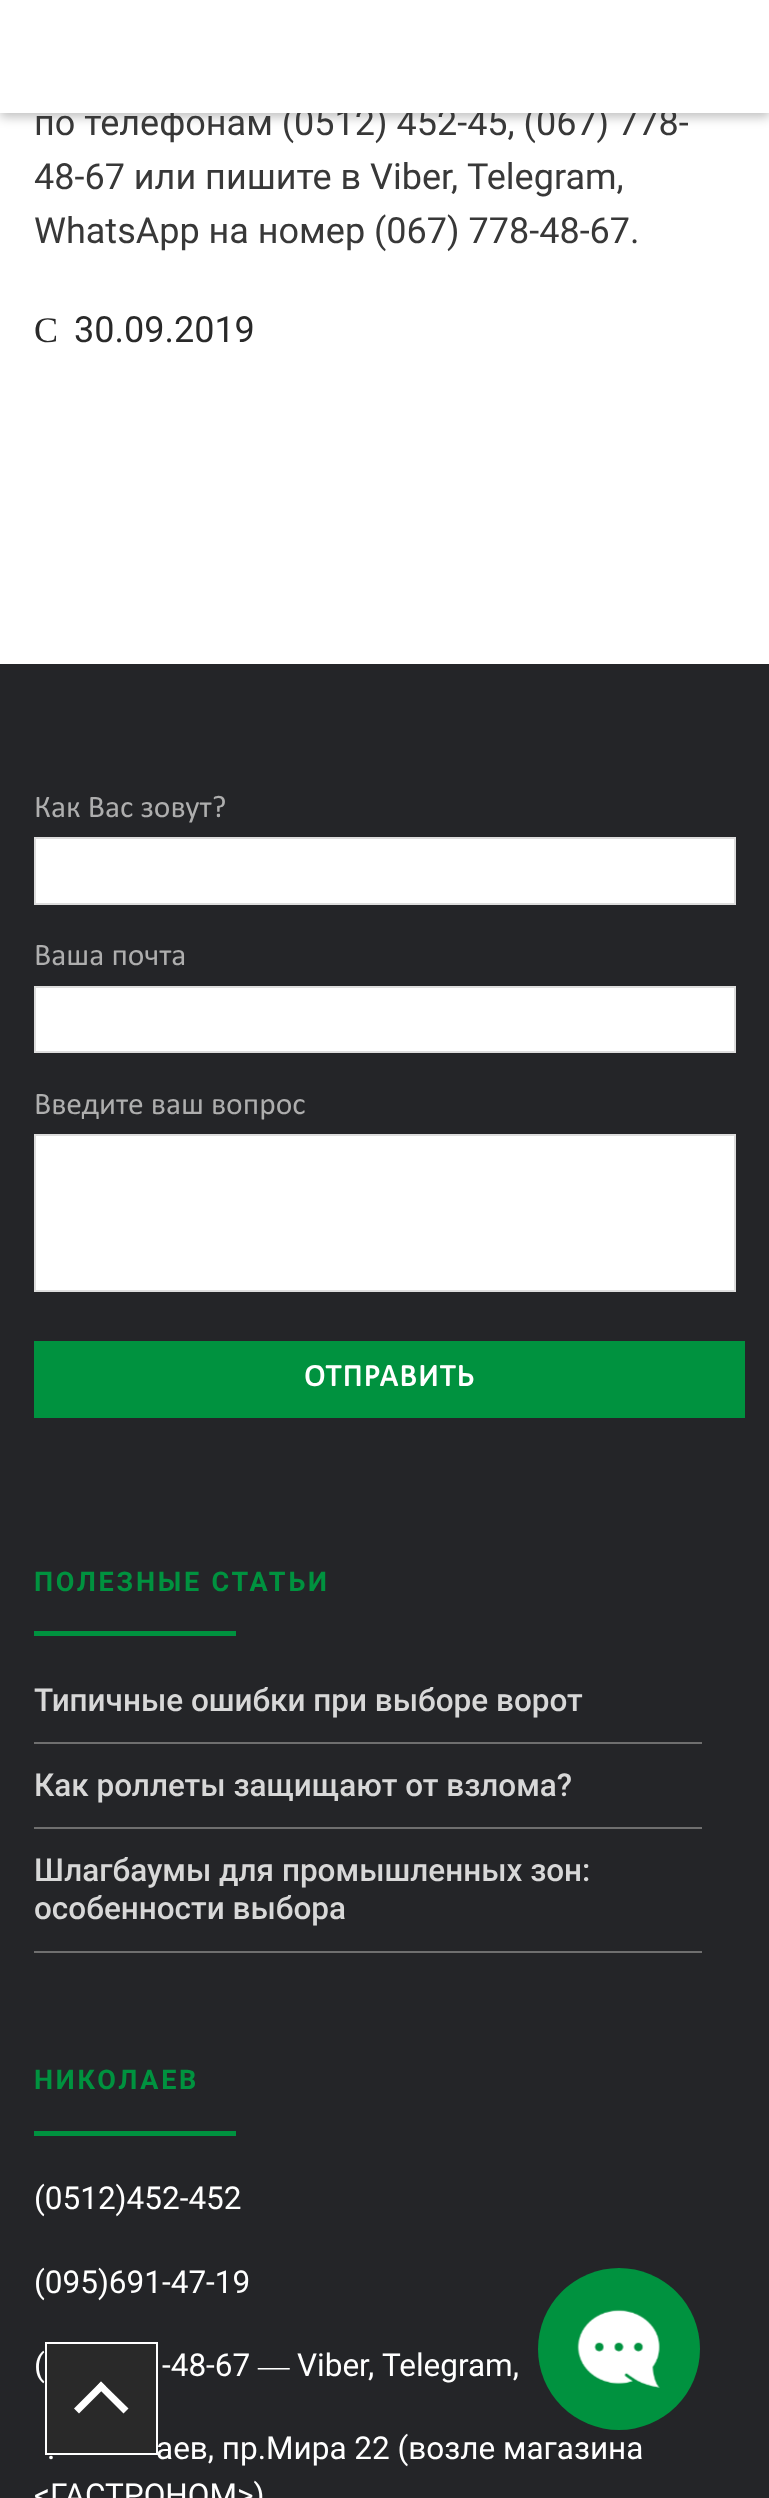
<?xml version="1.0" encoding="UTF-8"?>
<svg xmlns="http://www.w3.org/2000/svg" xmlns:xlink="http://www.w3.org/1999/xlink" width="769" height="2498">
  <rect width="100%" height="100%" fill="#ffffff" />
  <rect y="5" width="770" height="112" fill="#000000" fill-opacity="0.25" filter="blur(5.5px)" />
  <rect y="664" width="769" height="1834" fill="#242528" />
  <rect x="35" y="838" width="700" height="66" fill="#ffffff" stroke="#dddddd" stroke-width="2" />
  <rect x="35" y="987" width="700" height="65" fill="#ffffff" stroke="#dddddd" stroke-width="2" />
  <rect x="35" y="1135" width="700" height="156" fill="#ffffff" stroke="#dddddd" stroke-width="2" />
  <rect x="34" y="1341" width="711" height="77" fill="#00923f" />
  <rect x="34" y="1631" width="202" height="5" fill="#00923f" />
  <rect x="34" y="1742" width="668" height="2" fill="#6f6f6f" />
  <rect x="34" y="1827" width="668" height="2" fill="#6f6f6f" />
  <rect x="34" y="1951" width="668" height="2" fill="#6f6f6f" />
  <rect x="34" y="2131" width="202" height="5" fill="#00923f" />
  <rect x="46" y="2343" width="111" height="111" fill="#292929" stroke="#ffffff" stroke-width="2" />
  <path d="M 79 2413.5 l -5 -5 l 27 -27 l 5 5 z" fill="#ffffff" />
  <path d="M 123.5 2413.5 l -27 -27 l 4.5 -5 l 27.5 27 z" fill="#ffffff" />
  <circle cx="619" cy="2349" r="81" fill="#00923f" />
  <image x="577" y="2309" width="83" height="79" xlink:href="image1.png" />
  <text x="34" y="135" style="font-family: Roboto; font-size: 36px; fill: #383838">по телефонам (0512) 452-45, (067) 778-</text>
  <rect width="769" height="113" fill="#ffffff" />
  <text x="34" y="189" style="font-family: Roboto; font-size: 36px; fill: #383838">48-67 или пишите в Viber, Telegram,</text>
  <text x="34" y="243" style="font-family: Roboto; font-size: 36px; fill: #383838">WhatsApp на номер (067) 778-48-67.</text>
  <text x="34" y="342" style="font-family: Liberation Serif; font-size: 36px; fill: #292929">C</text>
  <text x="74" y="342" style="font-family: Roboto; font-size: 36px; fill: #292929">30.09.2019</text>
  <text x="34" y="817" style="font-family: Calibri; font-size: 31.5px; fill: #aeaeae">Как Вас зовут?</text>
  <text x="34" y="965" style="font-family: Calibri; font-size: 31.5px; fill: #aeaeae">Ваша почта</text>
  <text x="34" y="1114" style="font-family: Calibri; font-size: 31.5px; fill: #aeaeae">Введите ваш вопрос</text>
  <text x="304" y="1386" style="font-family: Calibri; font-size: 31.5px; font-weight: bold; letter-spacing: 1.5px; fill: #ffffff">ОТПРАВИТЬ</text>
  <text x="34" y="1591" style="font-family: Roboto; font-size: 27px; font-weight: bold; letter-spacing: 2.75px; fill: #00923f">ПОЛЕЗНЫЕ СТАТЬИ</text>
  <text x="34" y="1711" style="font-family: Roboto; font-size: 31.5px; font-weight: 500; fill: #d8d8d8">Типичные ошибки при выборе ворот</text>
  <text x="34" y="1796" style="font-family: Roboto; font-size: 31.5px; font-weight: 500; fill: #d8d8d8">Как роллеты защищают от взлома?</text>
  <text x="34" y="1881" style="font-family: Roboto; font-size: 31.5px; font-weight: 500; fill: #d8d8d8">Шлагбаумы для промышленных зон:</text>
  <text x="34" y="1919" style="font-family: Roboto; font-size: 31.5px; font-weight: 500; fill: #d8d8d8">особенности выбора</text>
  <text x="34" y="2089" style="font-family: Roboto; font-size: 27px; font-weight: bold; letter-spacing: 2.75px; fill: #00923f">НИКОЛАЕВ</text>
  <text x="34" y="2209" style="font-family: Roboto; font-size: 31.5px; fill: #ffffff">(0512)452-452</text>
  <text x="34" y="2293" style="font-family: Roboto; font-size: 31.5px; fill: #ffffff">(095)691-47-19</text>
  <text x="34" y="2376" style="font-family: Roboto; font-size: 31.5px; fill: #ffffff">(</text>
  <text x="162" y="2376" style="font-family: Roboto; font-size: 31.5px; fill: #ffffff">-48-67</text>
  <text x="258" y="2376" style="font-family: Liberation Serif; font-size: 31.5px; fill: #ffffff">―</text>
  <text x="297" y="2376" style="font-family: Roboto; font-size: 31.5px; fill: #ffffff">Viber, Telegram,</text>
  <text x="47" y="2459" style="font-family: Roboto; font-size: 31.5px; fill: #ffffff">.</text>
  <text x="156" y="2459" style="font-family: Roboto; font-size: 31.5px; fill: #ffffff">аев, пр.Мира 22 (возле магазина</text>
  <text x="34" y="2506" style="font-family: Roboto; font-size: 31.5px; fill: #ffffff">&lt;ГАСТРОНОМ&gt;)</text>
</svg>
